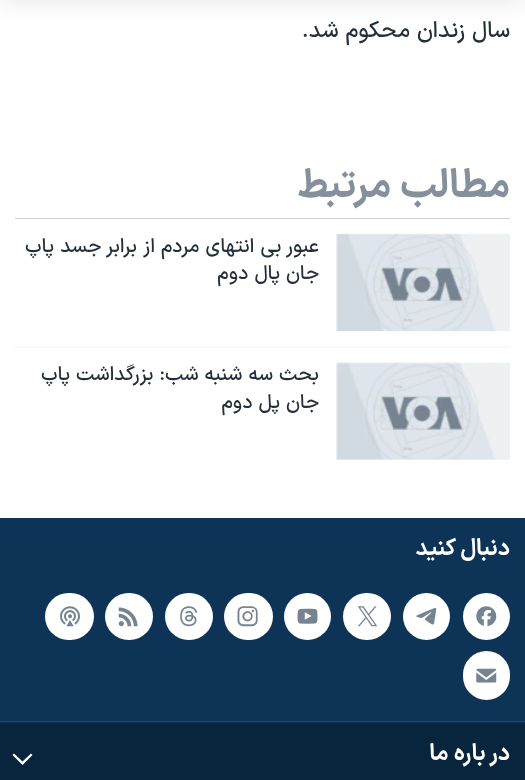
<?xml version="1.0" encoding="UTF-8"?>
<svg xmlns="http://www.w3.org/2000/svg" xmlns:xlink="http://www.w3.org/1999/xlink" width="525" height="780">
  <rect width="100%" height="100%" fill="#ffffff" />
  <rect y="-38" width="525" height="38" fill="#000000" fill-opacity="0.1" filter="blur(12.5px)" />
  <rect x="15" y="218" width="495" height="1" fill="#cbd1d6" />
  <rect x="336" y="234" width="174" height="97" fill="#f6f7f8" />
  <image x="336" y="233" width="174" height="98" xlink:href="image1.png" />
  <path d="M 15 347 h 495" fill="none" stroke="#e8eaec" stroke-width="1.2" stroke-dasharray="1.25 1.25" />
  <rect x="336" y="363" width="174" height="97" fill="#f6f7f8" />
  <image x="336" y="362" width="174" height="98" xlink:href="image2.png" />
  <rect y="518" width="525" height="205" fill="#0d3456" />
  <circle cx="486.5" cy="616.5" r="23.5" fill="#ffffff" />
  <image x="476" y="606" width="21" height="21" xlink:href="image3.png" />
  <circle cx="426.5" cy="616.5" r="23.5" fill="#ffffff" />
  <image x="416" y="608" width="21" height="17" xlink:href="image4.png" />
  <rect x="343" y="593" width="48" height="47" rx="23.5" fill="#ffffff" />
  <image x="357" y="606" width="21" height="21" xlink:href="image5.png" />
  <circle cx="307.5" cy="616.5" r="23.5" fill="#ffffff" />
  <image x="297" y="608" width="21" height="16" xlink:href="image6.png" />
  <rect x="224" y="593" width="49" height="47" rx="23.5" fill="#ffffff" />
  <image x="237" y="606" width="21" height="21" xlink:href="image7.png" />
  <rect x="165" y="593" width="48" height="47" rx="23.5" fill="#ffffff" />
  <image x="180" y="606" width="18" height="21" xlink:href="image8.png" />
  <rect x="105" y="593" width="48" height="47" rx="23.5" fill="#ffffff" />
  <image x="118" y="607" width="20" height="20" xlink:href="image9.png" />
  <rect x="45" y="593" width="49" height="47" rx="23.5" fill="#ffffff" />
  <image x="60" y="606" width="20" height="21" xlink:href="image10.png" />
  <rect x="463" y="651" width="47" height="49" rx="23.5" fill="#ffffff" />
  <image x="476" y="668" width="21" height="15" xlink:href="image11.png" />
  <rect y="721" width="525" height="1" fill="#134976" />
  <rect y="723" width="525" height="57" fill="#09243d" />
  <path d="M 12.5 755 l 10 10 l 10 -10 l -1.5 -1.5 l -8.5 8 l -8.5 -8 z" fill="#ffffff" />
  <text x="510" y="37" style="font-family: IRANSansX; font-size: 22.5px; font-weight: 500; direction: rtl; fill: #222f3a">سال زندان محکوم شد.</text>
  <text x="510" y="197" style="font-family: IRANSansX; font-size: 39.5px; font-weight: bold; direction: rtl; fill: #84919d">مطالب مرتبط</text>
  <text x="319" y="252" style="font-family: IRANSansX; font-size: 19.75px; font-weight: 500; direction: rtl; fill: #222f3a">عبور بی انتهای مردم از برابر جسد پاپ</text>
  <text x="319" y="279" style="font-family: IRANSansX; font-size: 19.75px; font-weight: 500; direction: rtl; fill: #222f3a">جان پال دوم</text>
  <text x="319" y="380" style="font-family: IRANSansX; font-size: 19.75px; font-weight: 500; direction: rtl; fill: #222f3a">بحث سه شنبه شب: بزرگداشت پاپ</text>
  <text x="319" y="408" style="font-family: IRANSansX; font-size: 19.75px; font-weight: 500; direction: rtl; fill: #222f3a">جان پل دوم</text>
  <text x="510" y="555" style="font-family: IRANSansX; font-size: 23px; font-weight: bold; direction: rtl; fill: #ffffff">دنبال کنید</text>
  <text x="510" y="760" style="font-family: IRANSansX; font-size: 23px; font-weight: bold; direction: rtl; fill: #ffffff">در باره ما</text>
</svg>
